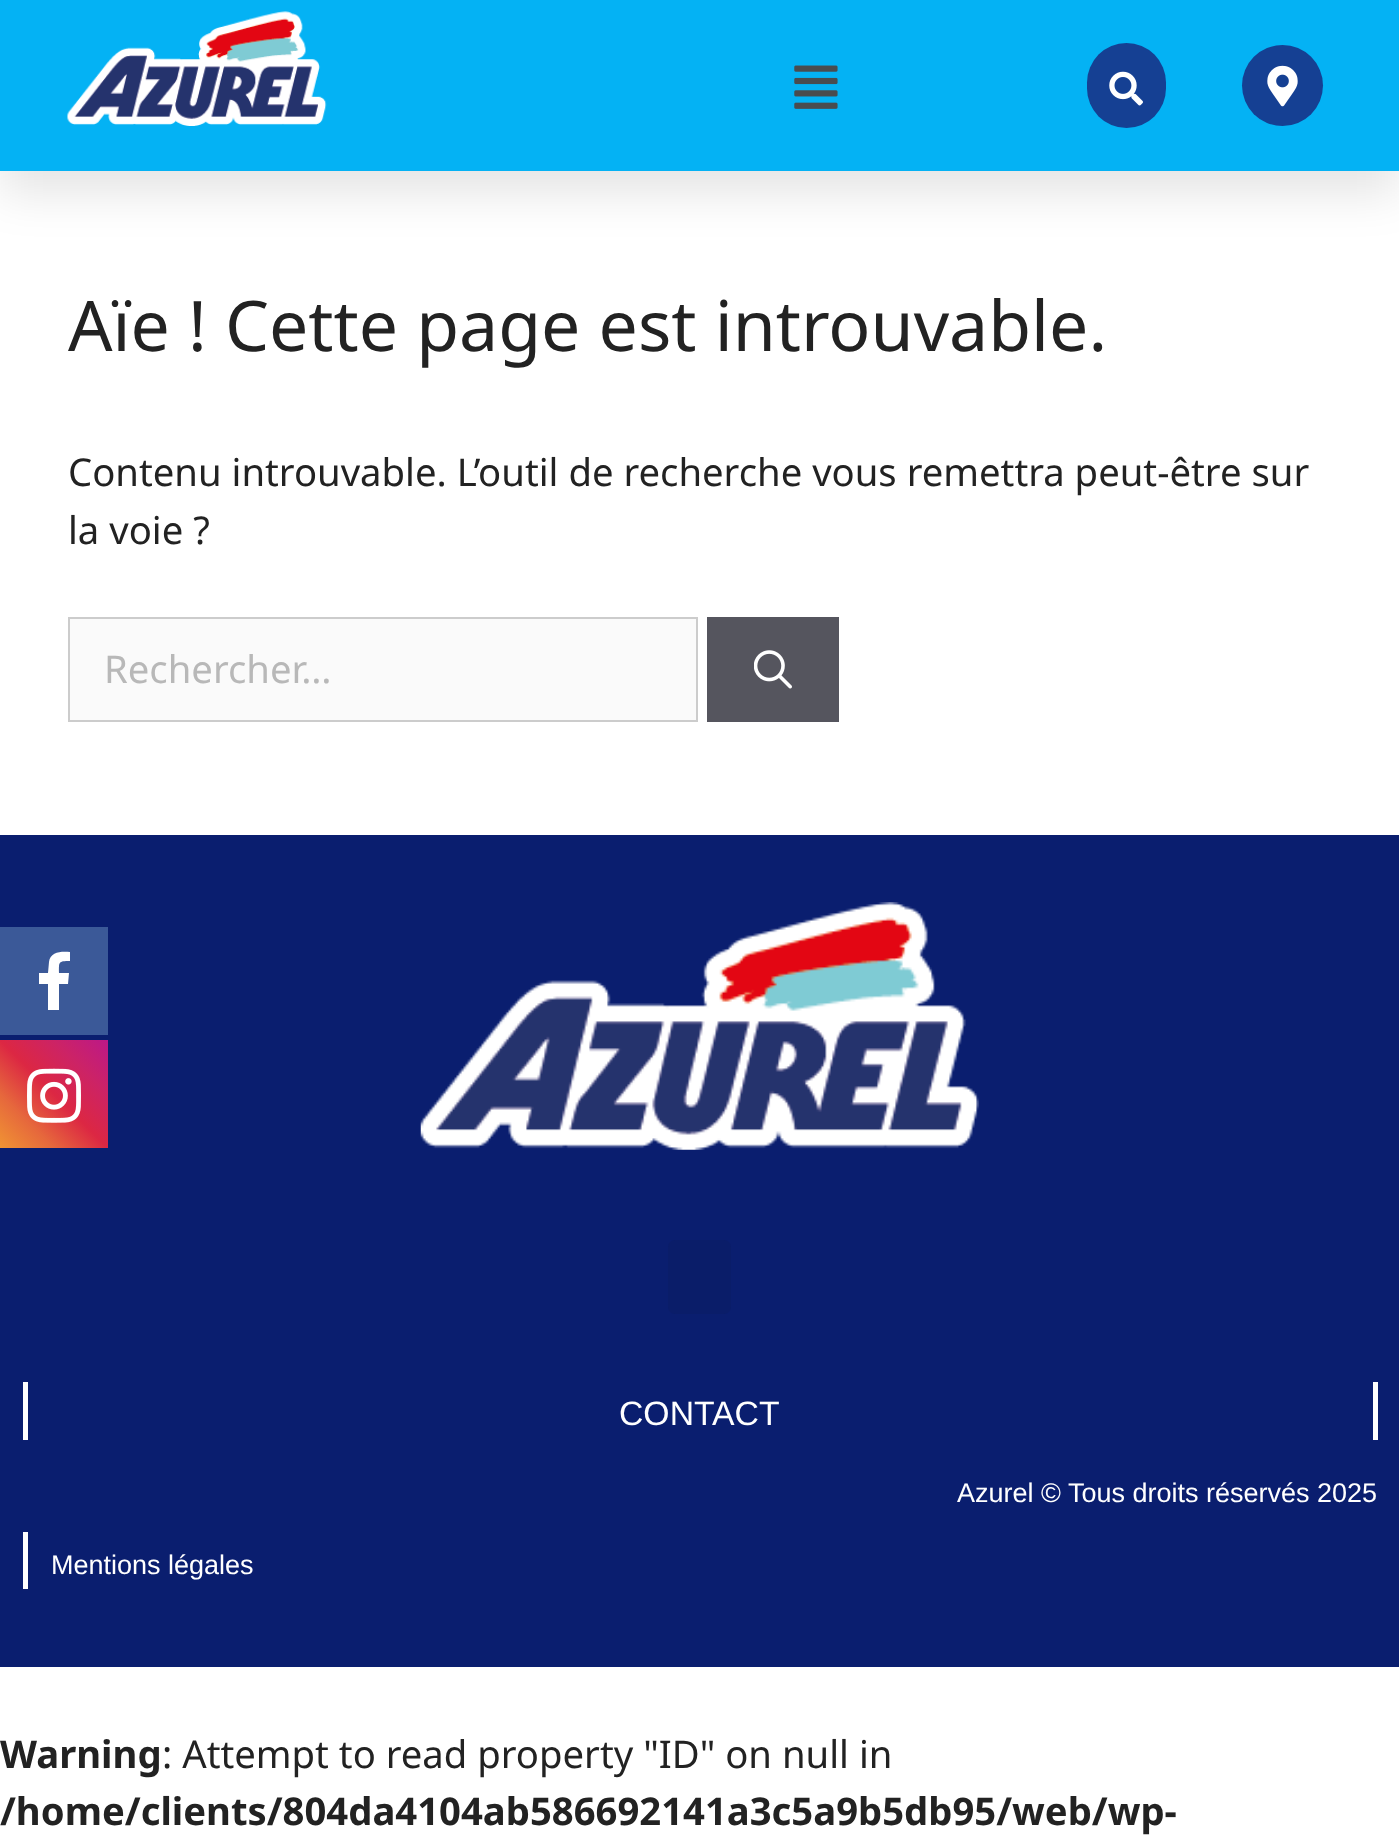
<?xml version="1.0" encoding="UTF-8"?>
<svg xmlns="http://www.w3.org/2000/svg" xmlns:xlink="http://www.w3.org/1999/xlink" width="1399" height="1841">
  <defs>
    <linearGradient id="g1" gradientUnits="userSpaceOnUse" x1="0" y1="1148" x2="108" y2="1040"><stop offset="0" stop-color="#f09433" /><stop offset="0.25" stop-color="#e6683c" /><stop offset="0.5" stop-color="#dc2743" /><stop offset="0.75" stop-color="#cc2366" /><stop offset="1" stop-color="#bc1888" /></linearGradient>
  </defs>
  <rect width="100%" height="100%" fill="#ffffff" />
  <rect y="23" width="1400" height="171" fill="#000000" fill-opacity="0.1" filter="blur(22.5px)" />
  <rect width="1399" height="171" fill="#04b2f4" />
  <image x="67" y="11" width="260" height="115" xlink:href="image1.png" />
  <image x="794" y="65" width="44" height="44" xlink:href="image2.png" />
  <rect x="1087" y="43" width="79" height="85" rx="39.5" fill="#154093" />
  <image x="1109" y="71" width="34" height="35" xlink:href="image3.png" />
  <circle cx="1282.5" cy="85.5" r="40.5" fill="#154093" />
  <image x="1267" y="65" width="31" height="42" xlink:href="image4.png" />
  <rect x="69" y="618" width="628" height="103" fill="#fafafa" stroke="#cccccc" stroke-width="2" />
  <rect x="707" y="617" width="132" height="105" fill="#55555e" />
  <image x="754" y="650" width="38" height="39" xlink:href="image5.png" />
  <rect y="835" width="1399" height="832" fill="#0a1e6f" />
  <rect y="927" width="108" height="108" fill="#3b5998" />
  <path d="M 70 952 v 9 c -12 0 -11 1 -11 12 h 10 l -1 11 h -9 v 26 h -11 v -26 h -9 v -11 h 9 l 1 -11 c 1 -10 12 -11 21 -10 z" fill="#ffffff" />
  <rect y="1040" width="108" height="108" fill="url(#g1)" />
  <image x="27" y="1068" width="54" height="55" xlink:href="image6.png" />
  <image x="420" y="902" width="559" height="248" xlink:href="image7.png" />
  <rect x="668" y="1240" width="63" height="74" rx="7" fill="#0a1d69" />
  <rect x="1373" y="1382" width="5" height="58" fill="#ffffff" />
  <rect x="23" y="1382" width="5" height="58" fill="#ffffff" />
  <rect x="23" y="1532" width="5" height="57" fill="#ffffff" />
  <text x="68" y="351" style="font-family: Noto Sans; font-size: 69.75px; fill: #222222">Aïe ! Cette page est introuvable.</text>
  <text x="68" y="486" style="font-family: Noto Sans; font-size: 38.25px; fill: #222222">Contenu introuvable. L’outil de recherche vous remettra peut-être sur</text>
  <text x="68" y="544" style="font-family: Noto Sans; font-size: 38.25px; fill: #222222">la voie ?</text>
  <text x="104" y="683" style="font-family: Noto Sans; font-size: 38.25px; fill: #b8b8b8">Rechercher…</text>
  <text x="619" y="1425" style="font-family: Liberation Sans; font-size: 33.75px; fill: #ffffff">CONTACT</text>
  <text x="957" y="1502" style="font-family: Liberation Sans; font-size: 27px; fill: #ffffff">Azurel © Tous droits réservés 2025</text>
  <text x="51" y="1574" style="font-family: Liberation Sans; font-size: 27px; fill: #ffffff">Mentions légales</text>
  <text x="0" y="1768" style="font-family: Noto Sans; font-size: 38.25px; font-weight: bold; fill: #222222">Warning</text>
  <text x="162" y="1768" style="font-family: Noto Sans; font-size: 38.25px; fill: #222222">: Attempt to read property "ID" on null in</text>
  <text x="0" y="1825" style="font-family: Noto Sans; font-size: 38.25px; font-weight: bold; fill: #222222">/home/clients/804da4104ab586692141a3c5a9b5db95/web/wp-</text>
</svg>
